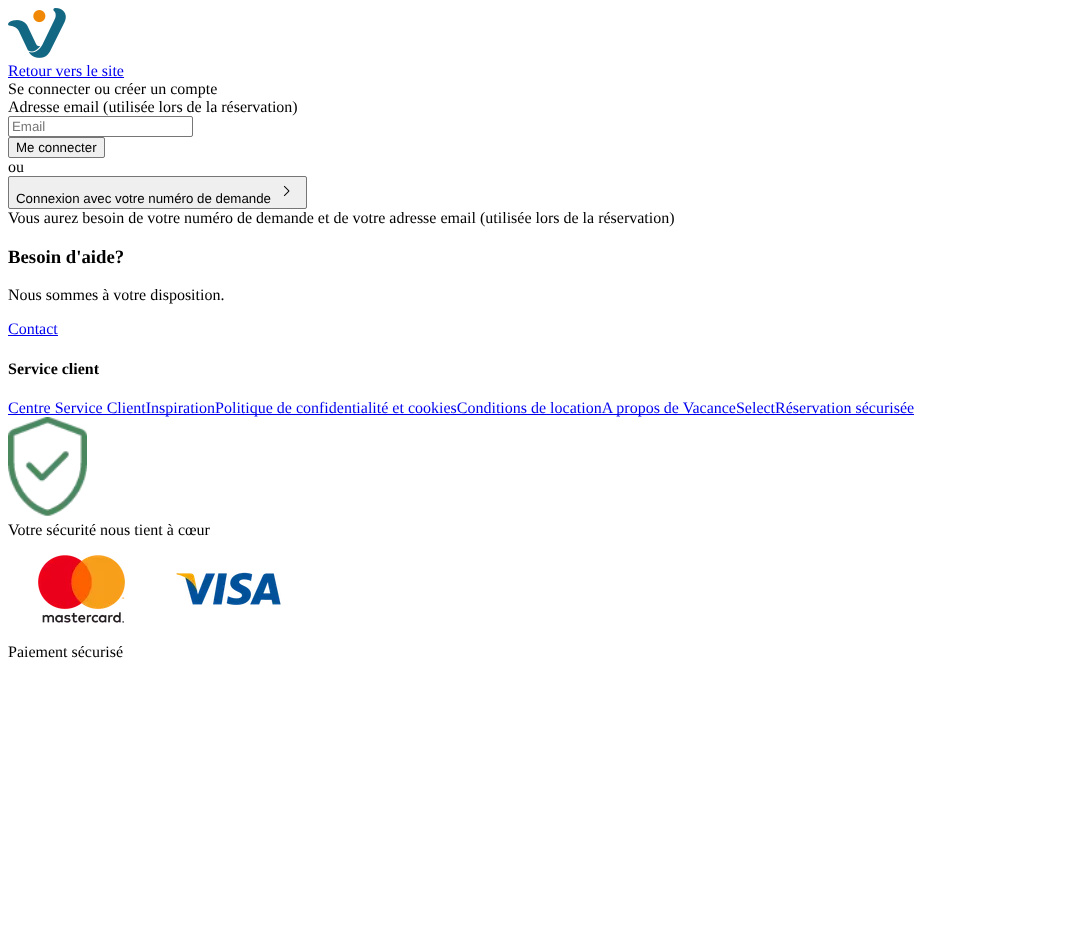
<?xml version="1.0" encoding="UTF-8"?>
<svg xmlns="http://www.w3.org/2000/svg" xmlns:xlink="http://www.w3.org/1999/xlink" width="1082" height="943">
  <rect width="100%" height="100%" fill="#ffffff" />
  <image x="8" y="8" width="58" height="50" xlink:href="image1.png" />
  <rect x="8" y="77" width="116" height="1" fill="#0000ee" />
  <rect x="8.5" y="116.5" width="184" height="20" rx="1.5" fill="none" stroke="#767676" />
  <rect x="8.5" y="137.5" width="96" height="20" rx="1.5" fill="#efefef" stroke="#767676" />
  <rect x="8.5" y="176.5" width="298" height="32" rx="1.5" fill="#efefef" stroke="#767676" />
  <image x="283" y="185" width="7" height="12" xlink:href="image2.png" />
  <rect x="8" y="335" width="50" height="1" fill="#0000ee" />
  <rect x="8" y="414" width="906" height="1" fill="#0000ee" />
  <image x="8" y="417" width="79" height="99" xlink:href="image3.png" />
  <image x="38" y="555" width="87" height="68" xlink:href="image4.png" />
  <image x="176" y="572" width="105" height="33" xlink:href="image5.png" />
  <text x="8" y="76" style="font-family: Liberation Serif; font-size: 16px; fill: #0000ee">Retour vers le site</text>
  <text x="8" y="94" style="font-family: Liberation Serif; font-size: 16px; fill: #000000">Se connecter ou créer un compte</text>
  <text x="8" y="112" style="font-family: Liberation Serif; font-size: 16px; fill: #000000">Adresse email (utilisée lors de la réservation)</text>
  <text x="12" y="131" style="font-family: Liberation Sans; font-size: 13.3px; fill: #757575">Email</text>
  <text x="16" y="152" style="font-family: Liberation Sans; font-size: 13.3px; fill: #000000">Me connecter</text>
  <text x="8" y="172" style="font-family: Liberation Serif; font-size: 16px; fill: #000000">ou</text>
  <text x="16" y="203" style="font-family: Liberation Sans; font-size: 13.3px; fill: #000000">Connexion avec votre numéro de demande</text>
  <text x="8" y="223" style="font-family: Liberation Serif; font-size: 16px; fill: #000000">Vous aurez besoin de votre numéro de demande et de votre adresse email (utilisée lors de la réservation)</text>
  <text x="8" y="263" style="font-family: Liberation Serif; font-size: 18.75px; font-weight: bold; fill: #000000">Besoin d'aide?</text>
  <text x="8" y="300" style="font-family: Liberation Serif; font-size: 16px; fill: #000000">Nous sommes à votre disposition.</text>
  <text x="8" y="334" style="font-family: Liberation Serif; font-size: 16px; fill: #0000ee">Contact</text>
  <text x="8" y="374" style="font-family: Liberation Serif; font-size: 16px; font-weight: bold; fill: #000000">Service client</text>
  <text x="8" y="413" style="font-family: Liberation Serif; font-size: 16px; fill: #0000ee">Centre Service ClientInspirationPolitique de confidentialité et cookiesConditions de locationA propos de VacanceSelectRéservation sécurisée</text>
  <text x="8" y="535" style="font-family: Liberation Serif; font-size: 16px; fill: #000000">Votre sécurité nous tient à cœur</text>
  <text x="8" y="657" style="font-family: Liberation Serif; font-size: 16px; fill: #000000">Paiement sécurisé</text>
</svg>
